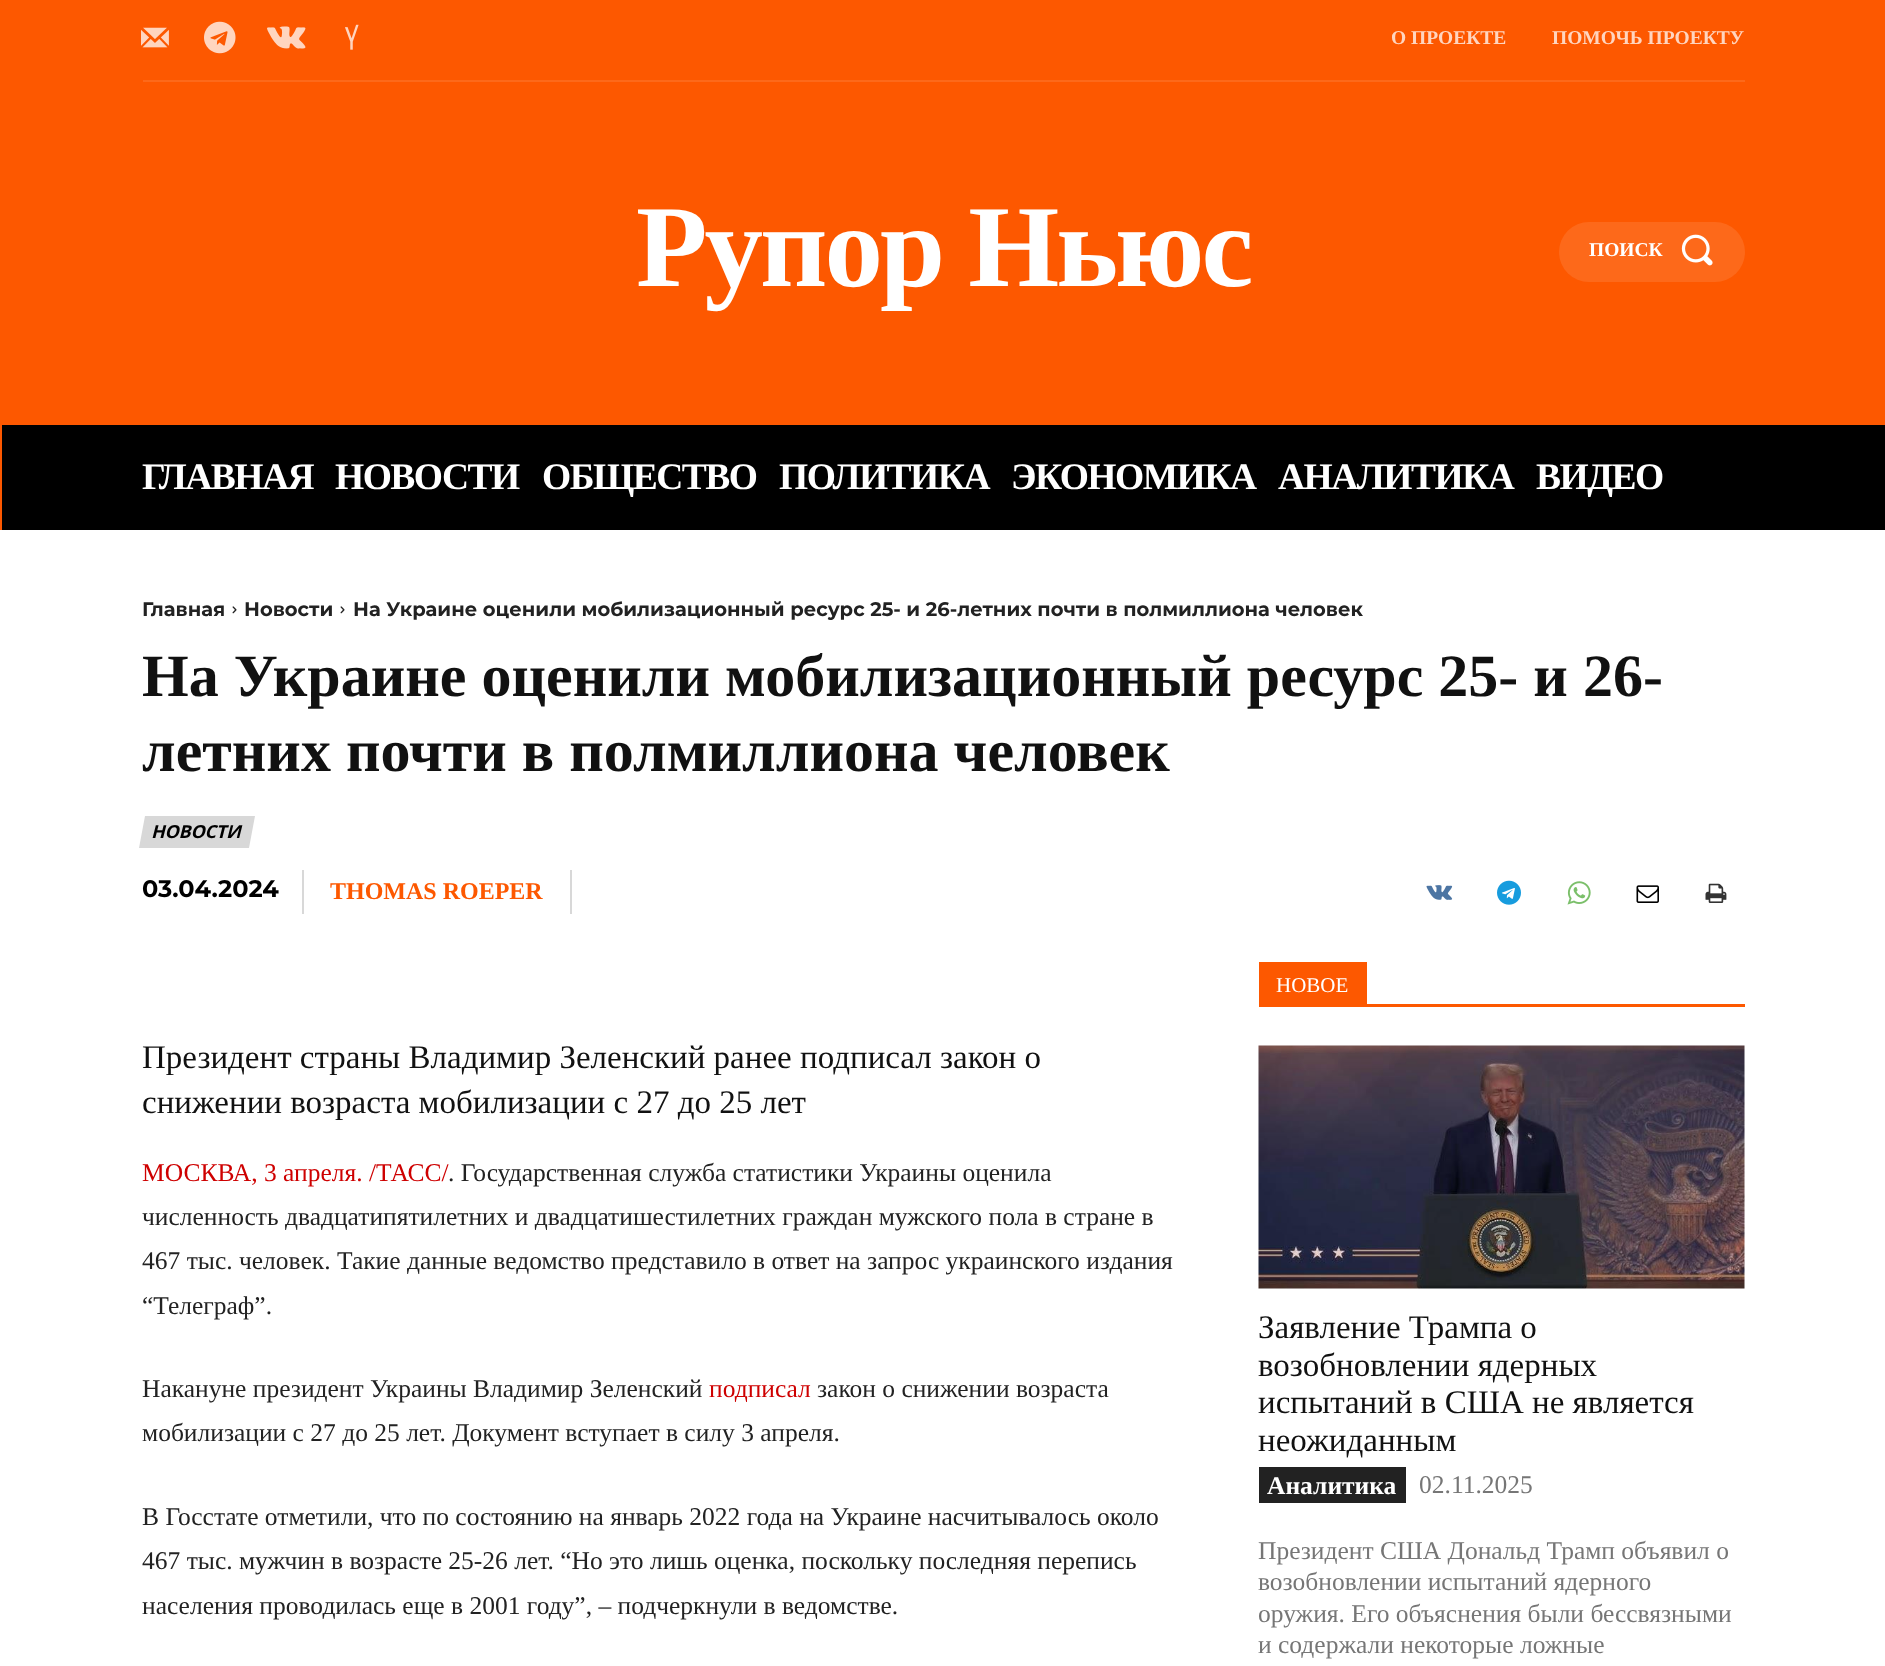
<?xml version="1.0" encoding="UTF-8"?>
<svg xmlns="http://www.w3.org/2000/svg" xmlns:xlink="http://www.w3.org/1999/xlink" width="1885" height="1666">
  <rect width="100%" height="100%" fill="#ffffff" />
  <rect width="1885" height="530" fill="#fd5800" />
  <rect x="143" y="80" width="1602" height="2" fill="#fd691a" />
  <image x="141" y="27" width="28" height="21" xlink:href="image1.png" />
  <image x="204" y="21" width="32" height="33" xlink:href="image2.png" />
  <image x="267" y="26" width="39" height="23" xlink:href="image3.png" />
  <image x="345" y="24" width="14" height="26" xlink:href="image4.png" />
  <rect x="1559" y="222" width="186" height="60" rx="30" fill="#fd691a" />
  <image x="1681" y="234" width="32" height="32" xlink:href="image5.png" />
  <rect x="2" y="425" width="1883" height="105" fill="#000000" />
  <image x="232" y="606" width="5" height="8" xlink:href="image6.png" />
  <image x="340" y="606" width="5" height="8" xlink:href="image6.png" />
  <path d="M 145 816 h 110 l -6 32 h -110 z" fill="#d8d8d8" />
  <rect x="302" y="870" width="2" height="44" fill="#d8d8d8" />
  <rect x="570" y="870" width="2" height="44" fill="#d8d8d8" />
  <image x="1426" y="885" width="27" height="15" xlink:href="image7.png" />
  <image x="1497" y="880" width="24" height="25" xlink:href="image8.png" />
  <image x="1567" y="881" width="24" height="24" xlink:href="image9.png" />
  <image x="1636" y="885" width="23" height="18" xlink:href="image10.png" />
  <image x="1705" y="883" width="22" height="20" xlink:href="image11.png" />
  <rect x="1259" y="1004" width="486" height="3" fill="#fd5800" />
  <rect x="1259" y="962" width="108" height="42" fill="#fd5800" />
  <image x="1258" y="1045" width="487" height="244" xlink:href="image12.png" />
  <rect x="1259" y="1467" width="147" height="36" fill="#222222" />
  <text x="1391" y="44" style="font-family: Liberation Serif; font-size: 19.5px; font-weight: bold; fill: #ffd5bf">О ПРОЕКТЕ</text>
  <text x="1552" y="44" style="font-family: Liberation Serif; font-size: 19.5px; font-weight: bold; fill: #ffd5bf">ПОМОЧЬ ПРОЕКТУ</text>
  <text x="636" y="286" style="font-family: Liberation Serif; font-size: 117px; font-weight: bold; letter-spacing: -3px; fill: #ffffff">Рупор Ньюс</text>
  <text x="1589" y="256" style="font-family: Liberation Serif; font-size: 19.5px; font-weight: bold; fill: #ffffff">ПОИСК</text>
  <text x="142" y="489" style="font-family: Liberation Serif; font-size: 37.5px; font-weight: bold; letter-spacing: -1.5px; fill: #ffffff">ГЛАВНАЯ</text>
  <text x="335" y="489" style="font-family: Liberation Serif; font-size: 37.5px; font-weight: bold; letter-spacing: -1.5px; fill: #ffffff">НОВОСТИ</text>
  <text x="542" y="489" style="font-family: Liberation Serif; font-size: 37.5px; font-weight: bold; letter-spacing: -1.5px; fill: #ffffff">ОБЩЕСТВО</text>
  <text x="779" y="489" style="font-family: Liberation Serif; font-size: 37.5px; font-weight: bold; letter-spacing: -1.5px; fill: #ffffff">ПОЛИТИКА</text>
  <text x="1011" y="489" style="font-family: Liberation Serif; font-size: 37.5px; font-weight: bold; letter-spacing: -1.5px; fill: #ffffff">ЭКОНОМИКА</text>
  <text x="1278" y="489" style="font-family: Liberation Serif; font-size: 37.5px; font-weight: bold; letter-spacing: -1.5px; fill: #ffffff">АНАЛИТИКА</text>
  <text x="1536" y="489" style="font-family: Liberation Serif; font-size: 37.5px; font-weight: bold; letter-spacing: -1.5px; fill: #ffffff">ВИДЕО</text>
  <text x="142" y="616" style="font-family: Montserrat; font-size: 19.5px; font-weight: bold; fill: #222222">Главная</text>
  <text x="244" y="616" style="font-family: Montserrat; font-size: 19.5px; font-weight: bold; fill: #222222">Новости</text>
  <text x="353" y="616" style="font-family: Montserrat; font-size: 19.5px; font-weight: bold; fill: #222222">На Украине оценили мобилизационный ресурс 25- и 26-летних почти в полмиллиона человек</text>
  <text x="142" y="696" style="font-family: Liberation Serif; font-size: 60px; font-weight: bold; fill: #111111">На Украине оценили мобилизационный ресурс 25- и 26-</text>
  <text x="142" y="771" style="font-family: Liberation Serif; font-size: 60px; font-weight: bold; fill: #111111">летних почти в полмиллиона человек</text>
  <text x="151" y="838" style="font-family: Open Sans; font-size: 18px; font-weight: bold; font-style: italic; letter-spacing: -0.25px; fill: #000000">НОВОСТИ</text>
  <text x="142" y="897" style="font-family: Montserrat; font-size: 24px; font-weight: bold; fill: #000000">03.04.2024</text>
  <text x="330" y="899" style="font-family: Liberation Serif; font-size: 24px; font-weight: bold; fill: #fd5800">THOMAS ROEPER</text>
  <text x="142" y="1068" style="font-family: Liberation Serif; font-size: 33px; fill: #111111">Президент страны Владимир Зеленский ранее подписал закон о</text>
  <text x="142" y="1113" style="font-family: Liberation Serif; font-size: 33px; fill: #111111">снижении возраста мобилизации с 27 до 25 лет</text>
  <text x="142" y="1181" style="font-family: Liberation Serif; font-size: 25.5px; fill: #ce0000">МОСКВА, 3 апреля. /ТАСС/</text>
  <text x="448" y="1181" style="font-family: Liberation Serif; font-size: 25.5px; fill: #222222">. Государственная служба статистики Украины оценила</text>
  <text x="142" y="1225" style="font-family: Liberation Serif; font-size: 25.5px; fill: #222222">численность двадцатипятилетних и двадцатишестилетних граждан мужского пола в стране в</text>
  <text x="142" y="1269" style="font-family: Liberation Serif; font-size: 25.5px; fill: #222222">467 тыс. человек. Такие данные ведомство представило в ответ на запрос украинского издания</text>
  <text x="142" y="1314" style="font-family: Liberation Serif; font-size: 25.5px; fill: #222222">“Телеграф”.</text>
  <text x="142" y="1397" style="font-family: Liberation Serif; font-size: 25.5px; fill: #222222">Накануне президент Украины Владимир Зеленский</text>
  <text x="709" y="1397" style="font-family: Liberation Serif; font-size: 25.5px; fill: #ce0000">подписал</text>
  <text x="817" y="1397" style="font-family: Liberation Serif; font-size: 25.5px; fill: #222222">закон о снижении возраста</text>
  <text x="142" y="1441" style="font-family: Liberation Serif; font-size: 25.5px; fill: #222222">мобилизации с 27 до 25 лет. Документ вступает в силу 3 апреля.</text>
  <text x="142" y="1525" style="font-family: Liberation Serif; font-size: 25.5px; fill: #222222">В Госстате отметили, что по состоянию на январь 2022 года на Украине насчитывалось около</text>
  <text x="142" y="1569" style="font-family: Liberation Serif; font-size: 25.5px; fill: #222222">467 тыс. мужчин в возрасте 25-26 лет. “Но это лишь оценка, поскольку последняя перепись</text>
  <text x="142" y="1614" style="font-family: Liberation Serif; font-size: 25.5px; fill: #222222">населения проводилась еще в 2001 году”, – подчеркнули в ведомстве.</text>
  <text x="1276" y="992" style="font-family: Liberation Serif; font-size: 21px; fill: #ffffff">НОВОЕ</text>
  <text x="1258" y="1338" style="font-family: Liberation Serif; font-size: 33px; fill: #111111">Заявление Трампа о</text>
  <text x="1258" y="1376" style="font-family: Liberation Serif; font-size: 33px; fill: #111111">возобновлении ядерных</text>
  <text x="1258" y="1413" style="font-family: Liberation Serif; font-size: 33px; fill: #111111">испытаний в США не является</text>
  <text x="1258" y="1451" style="font-family: Liberation Serif; font-size: 33px; fill: #111111">неожиданным</text>
  <text x="1267" y="1494" style="font-family: Liberation Serif; font-size: 25.5px; font-weight: bold; fill: #ffffff">Аналитика</text>
  <text x="1419" y="1493" style="font-family: Liberation Serif; font-size: 25.5px; fill: #767676">02.11.2025</text>
  <text x="1258" y="1559" style="font-family: Liberation Serif; font-size: 25.5px; fill: #767676">Президент США Дональд Трамп объявил о</text>
  <text x="1258" y="1590" style="font-family: Liberation Serif; font-size: 25.5px; fill: #767676">возобновлении испытаний ядерного</text>
  <text x="1258" y="1622" style="font-family: Liberation Serif; font-size: 25.5px; fill: #767676">оружия. Его объяснения были бессвязными</text>
  <text x="1258" y="1653" style="font-family: Liberation Serif; font-size: 25.5px; fill: #767676">и содержали некоторые ложные</text>
</svg>
